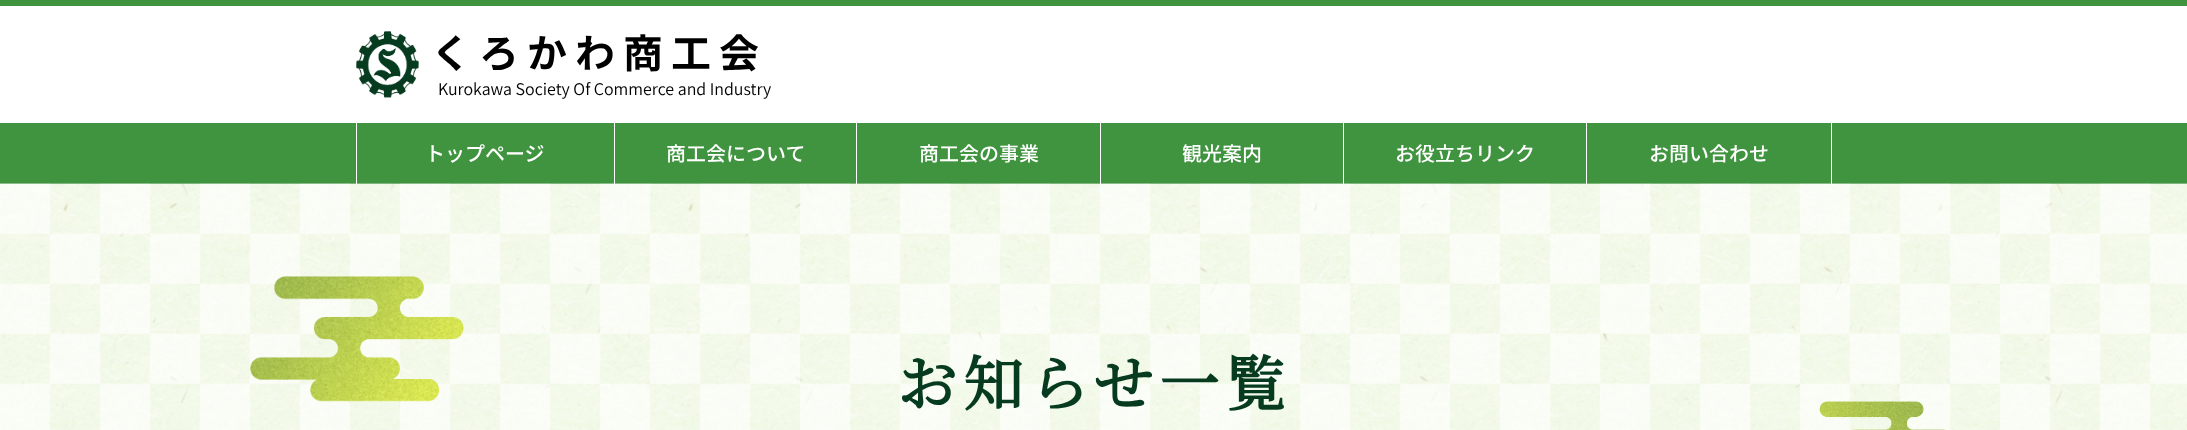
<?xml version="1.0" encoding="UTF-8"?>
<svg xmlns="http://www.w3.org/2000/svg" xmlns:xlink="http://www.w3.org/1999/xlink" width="2187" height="430">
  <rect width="100%" height="100%" fill="#ffffff" />
  <rect width="2187" height="6" fill="#409440" />
  <image x="356" y="31" width="63" height="67" xlink:href="image1.png" />
  <rect y="123" width="2187" height="61" fill="#409440" />
  <rect x="1831" y="123" width="1" height="61" fill="#ffffff" />
  <image x="0" y="183" width="2187" height="247" xlink:href="image2.png" />
  <image x="0" y="183" width="2187" height="247" xlink:href="image3.png" />
  <rect x="356" y="123" width="1" height="61" fill="#ffffff" />
  <rect x="614" y="123" width="1" height="61" fill="#ffffff" />
  <rect x="856" y="123" width="1" height="61" fill="#ffffff" />
  <rect x="1100" y="123" width="1" height="61" fill="#ffffff" />
  <rect x="1343" y="123" width="1" height="61" fill="#ffffff" />
  <rect x="1586" y="123" width="1" height="61" fill="#ffffff" />
  <image x="250" y="276" width="214" height="126" xlink:href="image4.png" />
  <image x="1819" y="401" width="127" height="29" xlink:href="image5.png" />
  <text x="431" y="68" style="font-family: Noto Sans JP; font-size: 40px; font-weight: bold; letter-spacing: 8px; fill: #000000">くろかわ商工会</text>
  <text x="438" y="95" style="font-family: Noto Sans JP; font-size: 16px; font-weight: 300; fill: #000000">Kurokawa Society Of Commerce and Industry</text>
  <text x="425" y="161" style="font-family: Noto Sans JP; font-size: 20px; font-weight: 500; fill: #ffffff">トップページ</text>
  <text x="666" y="161" style="font-family: Noto Sans JP; font-size: 20px; font-weight: 500; fill: #ffffff">商工会について</text>
  <text x="919" y="161" style="font-family: Noto Sans JP; font-size: 20px; font-weight: 500; fill: #ffffff">商工会の事業</text>
  <text x="1182" y="161" style="font-family: Noto Sans JP; font-size: 20px; font-weight: 500; fill: #ffffff">観光案内</text>
  <text x="1395" y="161" style="font-family: Noto Sans JP; font-size: 20px; font-weight: 500; fill: #ffffff">お役立ちリンク</text>
  <text x="1649" y="161" style="font-family: Noto Sans JP; font-size: 20px; font-weight: 500; fill: #ffffff">お問い合わせ</text>
  <text x="897" y="406" style="font-family: Noto Serif JP; font-size: 60px; font-weight: bold; letter-spacing: 6px; fill: #073b20">お知らせ一覧</text>
</svg>
